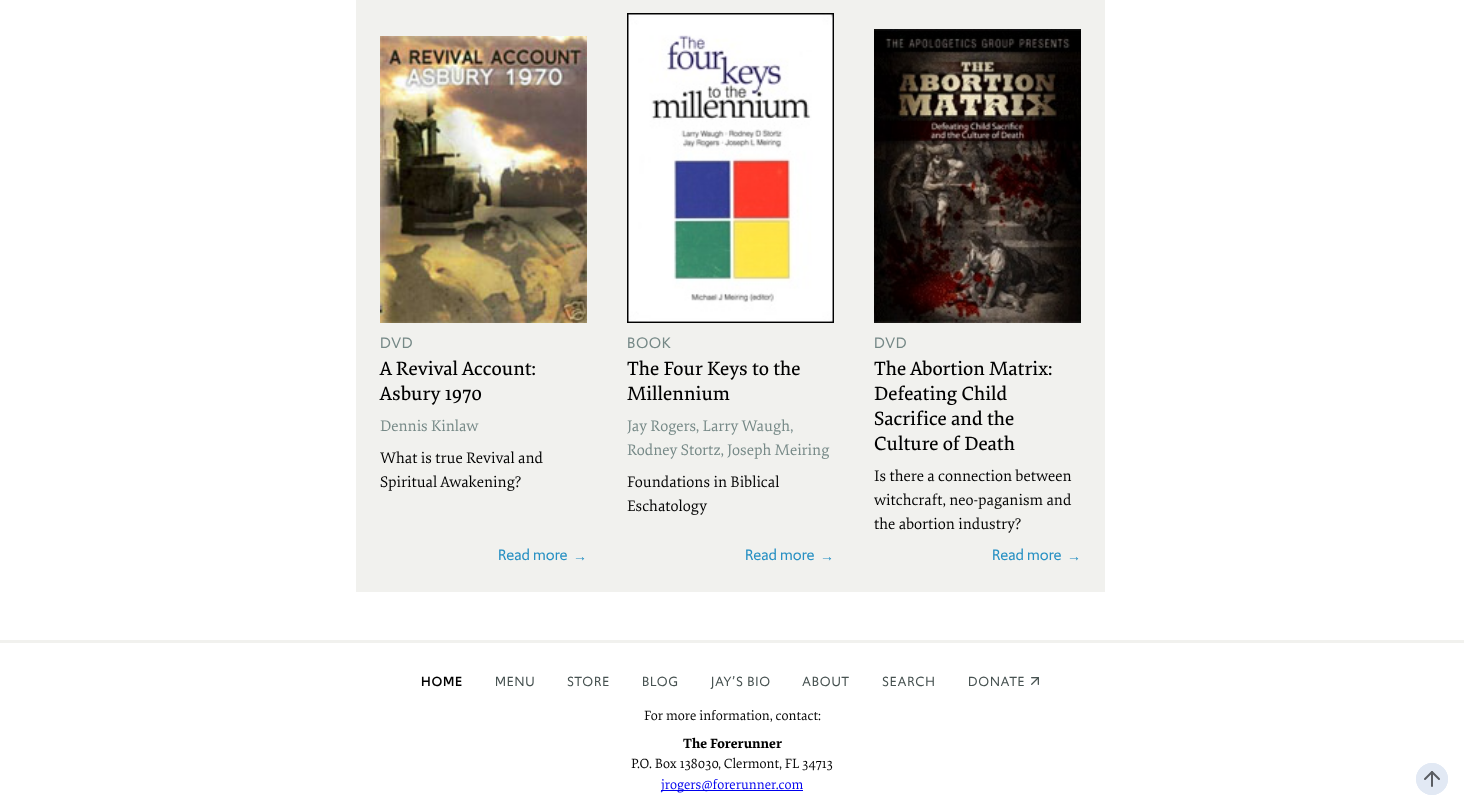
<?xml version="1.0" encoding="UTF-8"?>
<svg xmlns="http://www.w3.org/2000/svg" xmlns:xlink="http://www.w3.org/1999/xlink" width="1464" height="811">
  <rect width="100%" height="100%" fill="#ffffff" />
  <rect x="356" width="749" height="592" fill="#f1f1ee" />
  <image x="380" y="36" width="207" height="287" xlink:href="image1.png" />
  <image x="627" y="13" width="207" height="310" xlink:href="image2.png" />
  <image x="874" y="29" width="207" height="294" xlink:href="image3.png" />
  <rect y="640" width="1464" height="3" fill="#f1f1ee" />
  <image x="1031" y="677" width="8" height="8" xlink:href="image4.png" />
  <rect x="661" y="790" width="142" height="1" fill="#0000ee" />
  <circle cx="1432" cy="779" r="16" fill="#e2e9f4" />
  <image x="1424" y="771" width="16" height="16" xlink:href="image5.png" />
  <circle cx="1432" cy="779" r="14" fill="none" stroke="#e2e9f4" stroke-width="4" />
  <text x="380" y="348" style="font-family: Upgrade; font-size: 16px; letter-spacing: 0.5px; fill: #768987">DVD</text>
  <text x="380" y="375" style="font-family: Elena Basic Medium; font-size: 20px; font-weight: 500; fill: #000000">A Revival Account:</text>
  <text x="380" y="400" style="font-family: Elena Basic Medium; font-size: 20px; font-weight: 500; fill: #000000">Asbury 1970</text>
  <text x="380" y="431" style="font-family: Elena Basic; font-size: 16px; fill: #768987">Dennis Kinlaw</text>
  <text x="380" y="463" style="font-family: Elena Basic; font-size: 16px; fill: #000000">What is true Revival and</text>
  <text x="380" y="487" style="font-family: Elena Basic; font-size: 16px; fill: #000000">Spiritual Awakening?</text>
  <text x="498" y="560" style="font-family: Upgrade; font-size: 16px; fill: #2790c3">Read more</text>
  <text x="573" y="561" style="font-family: Liberation Sans; font-size: 14px; fill: #2790c3">→</text>
  <text x="627" y="348" style="font-family: Upgrade; font-size: 16px; letter-spacing: 0.5px; fill: #768987">BOOK</text>
  <text x="627" y="375" style="font-family: Elena Basic Medium; font-size: 20px; font-weight: 500; fill: #000000">The Four Keys to the</text>
  <text x="627" y="400" style="font-family: Elena Basic Medium; font-size: 20px; font-weight: 500; fill: #000000">Millennium</text>
  <text x="627" y="431" style="font-family: Elena Basic; font-size: 16px; fill: #768987">Jay Rogers, Larry Waugh,</text>
  <text x="627" y="455" style="font-family: Elena Basic; font-size: 16px; fill: #768987">Rodney Stortz, Joseph Meiring</text>
  <text x="627" y="487" style="font-family: Elena Basic; font-size: 16px; fill: #000000">Foundations in Biblical</text>
  <text x="627" y="511" style="font-family: Elena Basic; font-size: 16px; fill: #000000">Eschatology</text>
  <text x="745" y="560" style="font-family: Upgrade; font-size: 16px; fill: #2790c3">Read more</text>
  <text x="820" y="561" style="font-family: Liberation Sans; font-size: 14px; fill: #2790c3">→</text>
  <text x="874" y="348" style="font-family: Upgrade; font-size: 16px; letter-spacing: 0.5px; fill: #768987">DVD</text>
  <text x="874" y="375" style="font-family: Elena Basic Medium; font-size: 20px; font-weight: 500; fill: #000000">The Abortion Matrix:</text>
  <text x="874" y="400" style="font-family: Elena Basic Medium; font-size: 20px; font-weight: 500; fill: #000000">Defeating Child</text>
  <text x="874" y="425" style="font-family: Elena Basic Medium; font-size: 20px; font-weight: 500; fill: #000000">Sacrifice and the</text>
  <text x="874" y="450" style="font-family: Elena Basic Medium; font-size: 20px; font-weight: 500; fill: #000000">Culture of Death</text>
  <text x="874" y="481" style="font-family: Elena Basic; font-size: 16px; fill: #000000">Is there a connection between</text>
  <text x="874" y="505" style="font-family: Elena Basic; font-size: 16px; fill: #000000">witchcraft, neo-paganism and</text>
  <text x="874" y="529" style="font-family: Elena Basic; font-size: 16px; fill: #000000">the abortion industry?</text>
  <text x="992" y="560" style="font-family: Upgrade; font-size: 16px; fill: #2790c3">Read more</text>
  <text x="1067" y="561" style="font-family: Liberation Sans; font-size: 14px; fill: #2790c3">→</text>
  <text x="421" y="686" style="font-family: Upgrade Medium; font-size: 14px; font-weight: 500; letter-spacing: 0.75px; fill: #000000">HOME</text>
  <text x="495" y="686" style="font-family: Upgrade; font-size: 14px; letter-spacing: 0.75px; fill: #475251">MENU</text>
  <text x="567" y="686" style="font-family: Upgrade; font-size: 14px; letter-spacing: 0.75px; fill: #475251">STORE</text>
  <text x="642" y="686" style="font-family: Upgrade; font-size: 14px; letter-spacing: 0.75px; fill: #475251">BLOG</text>
  <text x="711" y="686" style="font-family: Upgrade; font-size: 14px; letter-spacing: 0.75px; fill: #475251">JAY’S BIO</text>
  <text x="802" y="686" style="font-family: Upgrade; font-size: 14px; letter-spacing: 0.75px; fill: #475251">ABOUT</text>
  <text x="882" y="686" style="font-family: Upgrade; font-size: 14px; letter-spacing: 0.75px; fill: #475251">SEARCH</text>
  <text x="968" y="686" style="font-family: Upgrade; font-size: 14px; letter-spacing: 0.75px; fill: #475251">DONATE</text>
  <text x="644" y="720" style="font-family: Elena Basic; font-size: 14px; fill: #000000">For more information, contact:</text>
  <text x="683" y="748" style="font-family: Elena Basic; font-size: 14px; font-weight: bold; fill: #000000">The Forerunner</text>
  <text x="631" y="768" style="font-family: Elena Basic; font-size: 14px; fill: #000000">P.O. Box 138030</text>
  <text x="718" y="768" style="font-family: Elena Basic; font-size: 14px; fill: #000000">, Clermont, FL 34713</text>
  <text x="661" y="789" style="font-family: Elena Basic; font-size: 14px; fill: #0000ee">jrogers@forerunner.com</text>
</svg>
